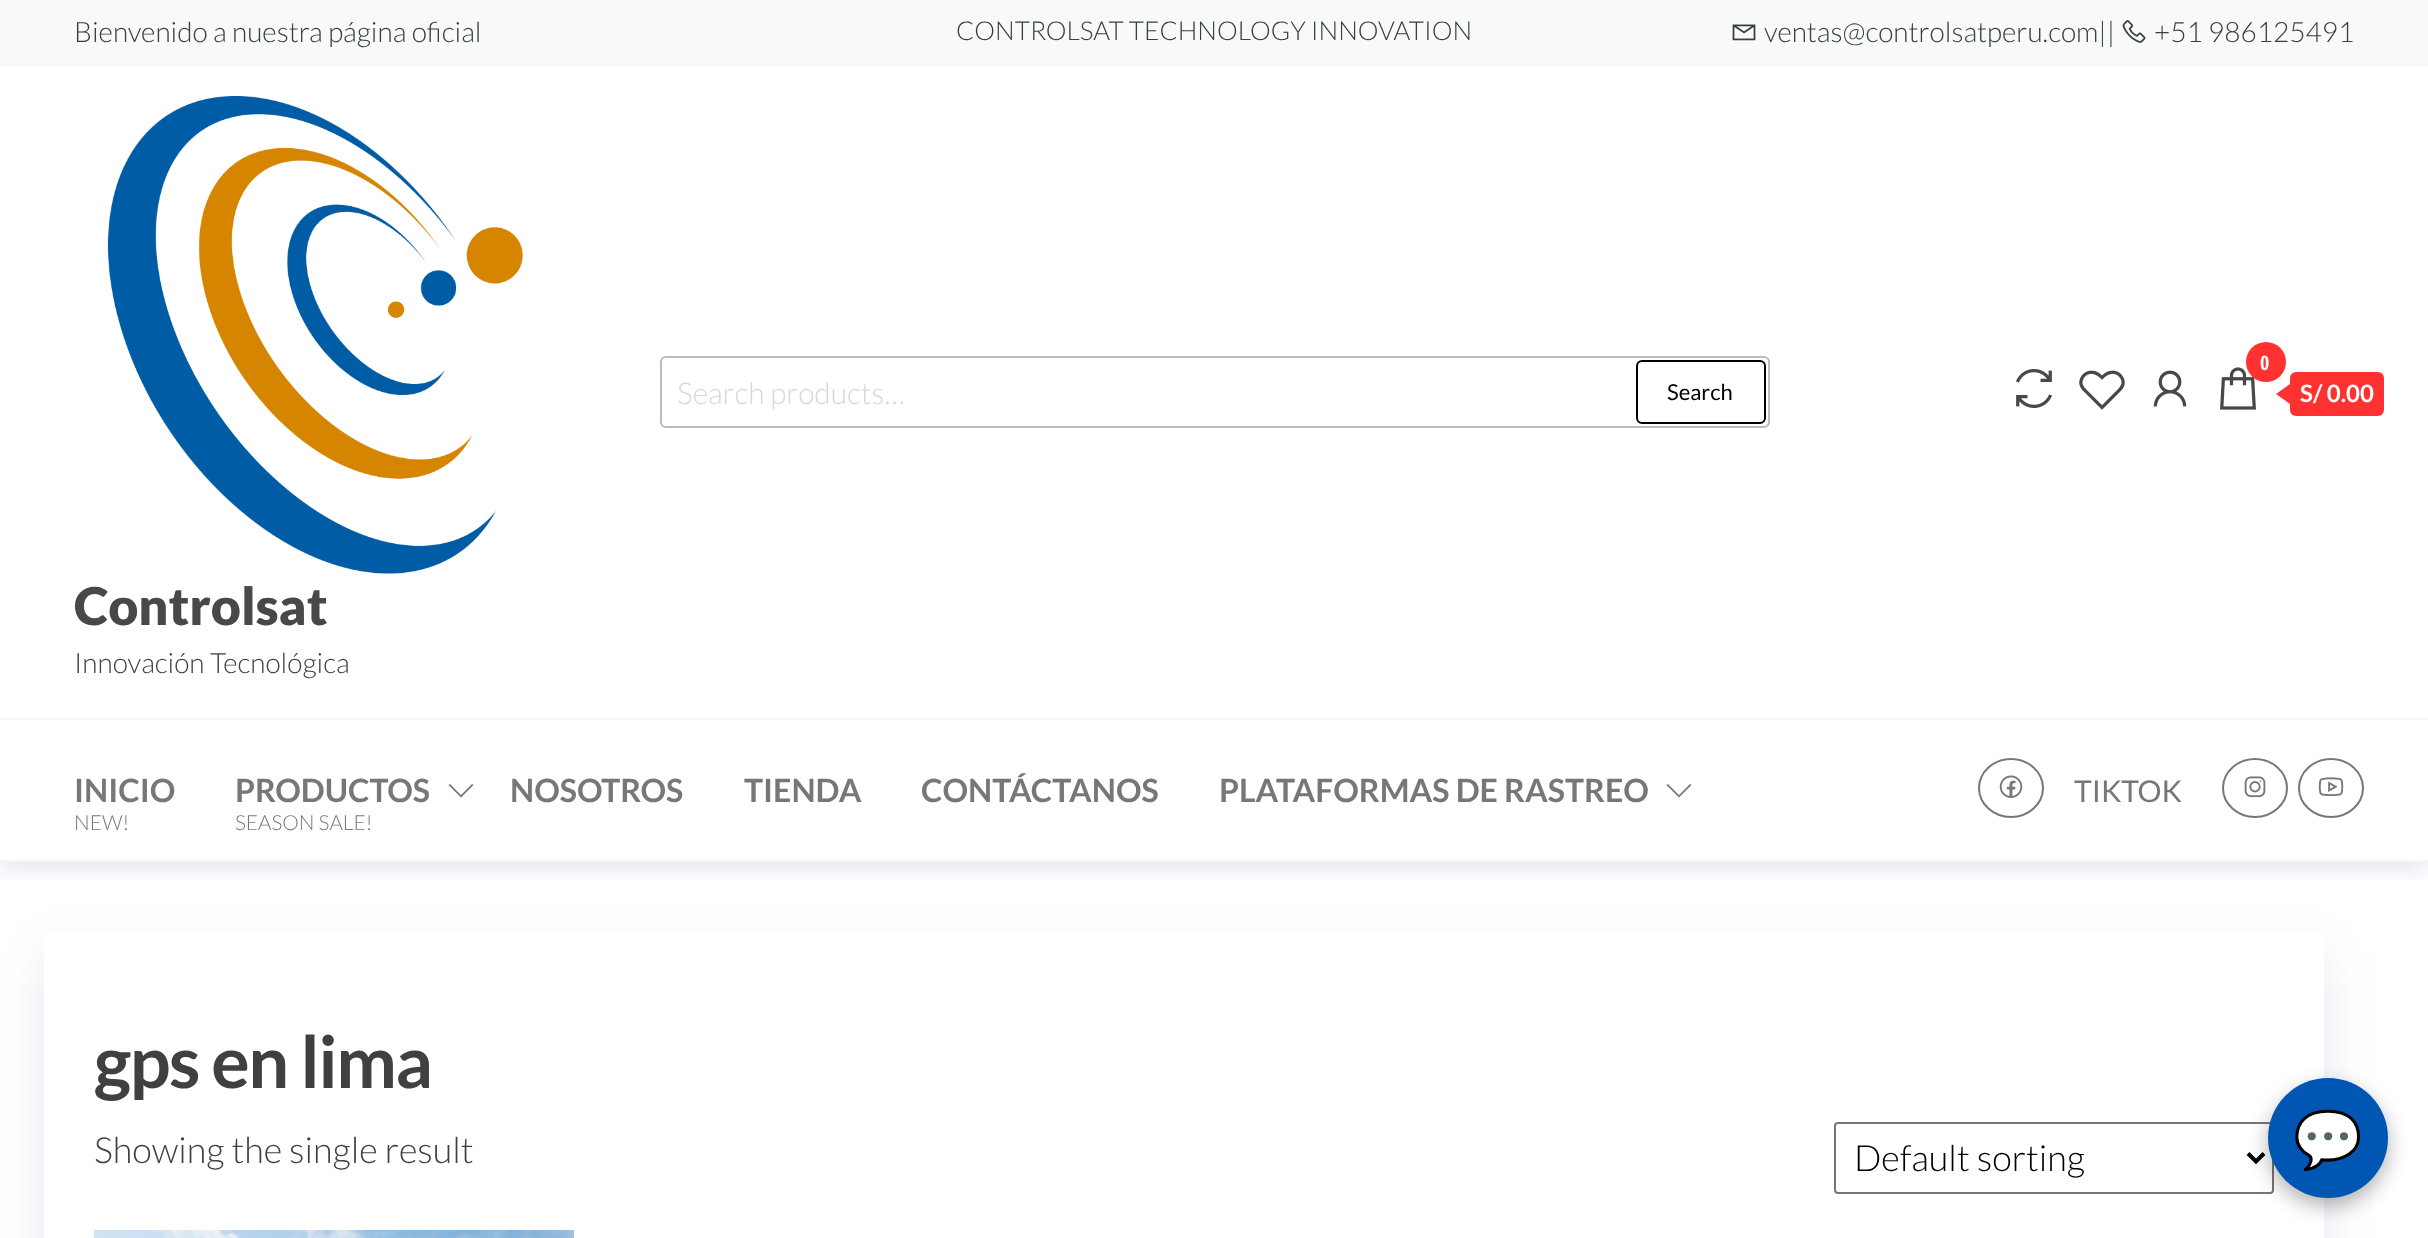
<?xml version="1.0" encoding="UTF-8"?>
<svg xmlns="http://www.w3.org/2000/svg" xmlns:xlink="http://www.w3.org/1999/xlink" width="2428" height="1238">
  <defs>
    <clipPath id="clip1"><rect x="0" y="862" width="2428" height="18" /></clipPath>
    <clipPath id="clip2"><path d="M 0 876 h 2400 v 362 h -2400 z m 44 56 h 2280 v 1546 h -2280 z" clip-rule="evenodd" /></clipPath>
  </defs>
  <rect width="100%" height="100%" fill="#ffffff" />
  <rect width="2428" height="64" fill="#f9f9f9" />
  <rect y="64" width="2428" height="2" fill="#f6f6f6" />
  <image x="1732" y="24" width="24" height="17" xlink:href="image1.png" />
  <image x="2122" y="20" width="24" height="23" xlink:href="image2.png" />
  <g clip-path="url(#clip1)">
    <rect y="730" width="2428" height="142" fill="#192d78" fill-opacity="0.1" filter="blur(10px)" />
  </g>
  <rect y="718" width="2428" height="2" fill="#f6f6f6" />
  <rect x="661" y="357" width="1108" height="70" rx="5" fill="none" stroke="#bbbbbb" stroke-width="2" />
  <rect x="1637" y="361" width="128" height="62" rx="5" fill="none" stroke="#000000" stroke-width="2" />
  <image x="2016" y="369" width="36" height="39" xlink:href="image3.png" />
  <image x="2079" y="370" width="46" height="40" xlink:href="image4.png" />
  <image x="2153" y="370" width="34" height="37" xlink:href="image5.png" />
  <image x="2220" y="367" width="36" height="43" xlink:href="image6.png" />
  <circle cx="2266" cy="362" r="20" fill="#ff3131" />
  <rect x="2290" y="372" width="94" height="44" rx="6" fill="#ff3131" />
  <path d="M 2290 384 v 20 l -14 -10 z" fill="#ff3131" />
  <image x="107" y="96" width="416" height="478" xlink:href="image7.png" />
  <rect y="860" width="2428" height="2" fill="#f6f6f6" />
  <path d="M 450 784 l -1.5 1 l 12.5 12.5 l 12.5 -12.5 l -1.5 -1 l -11 11 z" fill="#777777" />
  <path d="M 1668 784 l -1.5 1 l 12.5 12.5 l 12.5 -12.5 l -1.5 -1 l -11 11 z" fill="#777777" />
  <path d="M 2011 759 c 17.5 0 32 13 32 29 c 0 16 -14.5 29 -32 29 c -17.5 0 -32 -13 -32 -29 c 0 -16 14.5 -29 32 -29 z" fill="none" stroke="#777777" stroke-width="2" />
  <image x="1999" y="775" width="24" height="23" xlink:href="image8.png" />
  <path d="M 2255 759 c 17.5 0 32 13 32 29 c 0 16 -14.5 29 -32 29 c -17.5 0 -32 -13 -32 -29 c 0 -16 14.5 -29 32 -29 z" fill="none" stroke="#777777" stroke-width="2" />
  <image x="2244" y="776" width="22" height="22" xlink:href="image9.png" />
  <path d="M 2331 759 c 17.5 0 32 13 32 29 c 0 16 -14.5 29 -32 29 c -17.5 0 -32 -13 -32 -29 c 0 -16 14.5 -29 32 -29 z" fill="none" stroke="#777777" stroke-width="2" />
  <image x="2318" y="777" width="26" height="20" xlink:href="image10.png" />
  <g clip-path="url(#clip2)">
    <rect x="44" y="952" width="2280" height="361" fill="#192d6e" fill-opacity="0.1" filter="blur(25px)" />
  </g>
  <rect x="1835" y="1123" width="438" height="70" rx="3" fill="none" stroke="#767676" stroke-width="2" />
  <path d="M 2248 1153.5 l 8 8 l 8 -8" fill="none" stroke="#000000" stroke-width="4" />
  <image x="94" y="1230" width="480" height="8" xlink:href="image11.png" />
  <rect x="2268" y="1086" width="120" height="120" rx="60" fill="#000000" fill-opacity="0.3" filter="blur(10px)" />
  <circle cx="2328" cy="1138" r="60" fill="#0056b3" />
  <text x="74" y="42" style="font-family: Lato; font-size: 28px; font-weight: 300; fill: #334142">Bienvenido a nuestra página oficial</text>
  <text x="956" y="40" style="font-family: Lato; font-size: 26px; font-weight: 300; fill: #334142">CONTROLSAT TECHNOLOGY INNOVATION</text>
  <text x="1764" y="42" style="font-family: Lato; font-size: 28px; font-weight: 300; fill: #334142">ventas@controlsatperu.com||</text>
  <text x="2154" y="42" style="font-family: Lato; font-size: 28px; font-weight: 300; fill: #334142">+51 986125491</text>
  <text x="677" y="404" style="font-family: Lato; font-size: 30px; font-weight: 300; fill: #d7d7d7">Search products…</text>
  <text x="1667" y="400" style="font-family: Lato; font-size: 22px; fill: #000000">Search</text>
  <text x="2260" y="370" style="font-family: Open Sans Condensed; font-size: 20px; font-weight: bold; fill: #ffffff">0</text>
  <text x="2300" y="402" style="font-family: Lato; font-size: 24px; font-weight: bold; fill: #ffffff">S/ 0.00</text>
  <text x="74" y="625" style="font-family: Lato; font-size: 52px; font-weight: 900; fill: #484848">Controlsat</text>
  <text x="74" y="673" style="font-family: Lato; font-size: 28px; font-weight: 300; fill: #404040">Innovación Tecnológica</text>
  <text x="74" y="802" style="font-family: Lato; font-size: 32px; font-weight: bold; fill: #777777">INICIO</text>
  <text x="74" y="830" style="font-family: Lato; font-size: 20.75px; font-weight: 300; fill: #777777">NEW!</text>
  <text x="235" y="802" style="font-family: Lato; font-size: 32px; font-weight: bold; fill: #777777">PRODUCTOS</text>
  <text x="235" y="830" style="font-family: Lato; font-size: 20.75px; font-weight: 300; fill: #777777">SEASON SALE!</text>
  <text x="510" y="802" style="font-family: Lato; font-size: 32px; font-weight: bold; fill: #777777">NOSOTROS</text>
  <text x="744" y="802" style="font-family: Lato; font-size: 32px; font-weight: bold; fill: #777777">TIENDA</text>
  <text x="921" y="802" style="font-family: Lato; font-size: 32px; font-weight: bold; fill: #777777">CONTÁCTANOS</text>
  <text x="1219" y="802" style="font-family: Lato; font-size: 32px; font-weight: bold; fill: #777777">PLATAFORMAS DE RASTREO</text>
  <text x="2074" y="802" style="font-family: Lato; font-size: 30px; fill: #777777">TIKTOK</text>
  <text x="94" y="1088" style="font-family: Lato; font-size: 72px; font-weight: bold; letter-spacing: -1.5px; fill: #404040">gps en lima</text>
  <text x="94" y="1163" style="font-family: Lato; font-size: 36px; font-weight: 300; fill: #404040">Showing the single result</text>
  <text x="1854" y="1171" style="font-family: Lato; font-size: 36px; font-weight: 300; fill: #000000">Default sorting</text>
  <text x="2293" y="1159" style="font-family: Noto Color Emoji; font-size: 56px; fill: #ffffff">💬</text>
</svg>
